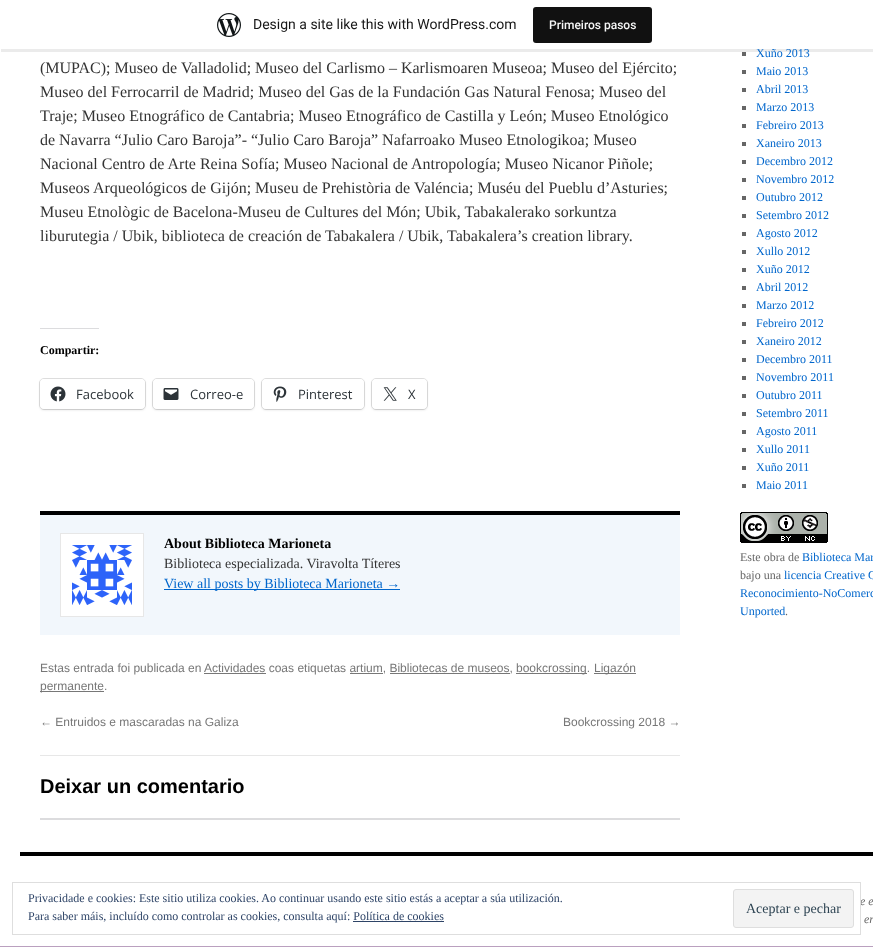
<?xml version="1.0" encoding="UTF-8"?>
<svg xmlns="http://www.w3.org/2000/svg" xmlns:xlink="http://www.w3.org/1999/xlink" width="873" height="947">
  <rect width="100%" height="100%" fill="#baa0bf" />
  <rect y="49" width="873" height="897" fill="#ffffff" />
  <path d="M 1 49 v 3 h 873 v -49 h -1 v 46 z" fill="#000000" fill-opacity="0.08" />
  <rect x="40" y="328" width="59" height="1" fill="#dcdcde" />
  <rect x="39.5" y="378.5" width="106" height="31" rx="4.5" fill="none" stroke="#e0e0e0" />
  <rect x="40" y="380" width="105" height="30" rx="4" fill="#000000" fill-opacity="0.12" filter="blur(1px)" />
  <rect x="40" y="379" width="105" height="30" rx="4" fill="#ffffff" />
  <image x="50" y="386" width="16" height="16" xlink:href="image2.png" />
  <rect x="152.5" y="378.5" width="102" height="31" rx="4.5" fill="none" stroke="#e0e0e0" />
  <rect x="153" y="380" width="101" height="30" rx="4" fill="#000000" fill-opacity="0.12" filter="blur(1px)" />
  <rect x="153" y="379" width="101" height="30" rx="4" fill="#ffffff" />
  <image x="163" y="388" width="16" height="12" xlink:href="image3.png" />
  <rect x="261.5" y="378.5" width="103" height="31" rx="4.5" fill="none" stroke="#e0e0e0" />
  <rect x="262" y="380" width="102" height="30" rx="4" fill="#000000" fill-opacity="0.12" filter="blur(1px)" />
  <rect x="262" y="379" width="102" height="30" rx="4" fill="#ffffff" />
  <image x="273" y="386" width="14" height="16" xlink:href="image4.png" />
  <rect x="371.5" y="378.5" width="56" height="31" rx="4.5" fill="none" stroke="#e0e0e0" />
  <rect x="372" y="380" width="55" height="30" rx="4" fill="#000000" fill-opacity="0.12" filter="blur(1px)" />
  <rect x="372" y="379" width="55" height="30" rx="4" fill="#ffffff" />
  <image x="383" y="387" width="14" height="14" xlink:href="image5.png" />
  <rect x="40" y="515" width="640" height="120" fill="#f2f7fc" />
  <rect x="40" y="511" width="640" height="4" fill="#000000" />
  <rect x="60.5" y="533.5" width="83" height="83" fill="#ffffff" stroke="#e7e7e7" />
  <image x="72" y="545" width="60" height="60" xlink:href="image6.png" />
  <rect x="164" y="589" width="236" height="1" fill="#0066cc" />
  <rect x="204" y="673" width="62" height="1" fill="#777777" />
  <rect x="516" y="673" width="71" height="1" fill="#777777" />
  <rect x="594" y="673" width="42" height="1" fill="#777777" />
  <rect x="350" y="673" width="33" height="1" fill="#777777" />
  <rect x="390" y="673" width="120" height="1" fill="#777777" />
  <rect x="40" y="691" width="64" height="1" fill="#777777" />
  <rect x="40" y="755" width="640" height="1" fill="#e7e7e7" />
  <rect x="40" y="818" width="640" height="2" fill="#dcdcde" />
  <rect x="742" y="52" width="4" height="4" fill="#666666" />
  <rect x="742" y="70" width="4" height="4" fill="#666666" />
  <rect x="742" y="88" width="4" height="4" fill="#666666" />
  <rect x="742" y="106" width="4" height="4" fill="#666666" />
  <rect x="742" y="124" width="4" height="4" fill="#666666" />
  <rect x="742" y="142" width="4" height="4" fill="#666666" />
  <rect x="742" y="160" width="4" height="4" fill="#666666" />
  <rect x="742" y="178" width="4" height="4" fill="#666666" />
  <rect x="742" y="196" width="4" height="4" fill="#666666" />
  <rect x="742" y="214" width="4" height="4" fill="#666666" />
  <rect x="742" y="232" width="4" height="4" fill="#666666" />
  <rect x="742" y="250" width="4" height="4" fill="#666666" />
  <rect x="742" y="268" width="4" height="4" fill="#666666" />
  <rect x="742" y="286" width="4" height="4" fill="#666666" />
  <rect x="742" y="304" width="4" height="4" fill="#666666" />
  <rect x="742" y="322" width="4" height="4" fill="#666666" />
  <rect x="742" y="340" width="4" height="4" fill="#666666" />
  <rect x="742" y="358" width="4" height="4" fill="#666666" />
  <rect x="742" y="376" width="4" height="4" fill="#666666" />
  <rect x="742" y="394" width="4" height="4" fill="#666666" />
  <rect x="742" y="412" width="4" height="4" fill="#666666" />
  <rect x="742" y="430" width="4" height="4" fill="#666666" />
  <rect x="742" y="448" width="4" height="4" fill="#666666" />
  <rect x="742" y="466" width="4" height="4" fill="#666666" />
  <rect x="742" y="484" width="4" height="4" fill="#666666" />
  <image x="740" y="512" width="88" height="31" xlink:href="image7.png" />
  <rect x="20" y="852" width="853" height="4" fill="#000000" />
  <text x="40" y="73" style="font-family: Liberation Serif; font-size: 16px; fill: #333333">(MUPAC); Museo de Valladolid; Museo del Carlismo – Karlismoaren Museoa; Museo del Ejército;</text>
  <text x="40" y="97" style="font-family: Liberation Serif; font-size: 16px; fill: #333333">Museo del Ferrocarril de Madrid; Museo del Gas de la Fundación Gas Natural Fenosa; Museo del</text>
  <text x="40" y="121" style="font-family: Liberation Serif; font-size: 16px; fill: #333333">Traje; Museo Etnográfico de Cantabria; Museo Etnográfico de Castilla y León; Museo Etnológico</text>
  <text x="40" y="145" style="font-family: Liberation Serif; font-size: 16px; fill: #333333">de Navarra “Julio Caro Baroja”- “Julio Caro Baroja” Nafarroako Museo Etnologikoa; Museo</text>
  <text x="40" y="169" style="font-family: Liberation Serif; font-size: 16px; fill: #333333">Nacional Centro de Arte Reina Sofía; Museo Nacional de Antropología; Museo Nicanor Piñole;</text>
  <text x="40" y="193" style="font-family: Liberation Serif; font-size: 16px; fill: #333333">Museos Arqueológicos de Gijón; Museu de Prehistòria de Valéncia; Muséu del Pueblu d’Asturies;</text>
  <text x="40" y="217" style="font-family: Liberation Serif; font-size: 16px; fill: #333333">Museu Etnològic de Bacelona-Museu de Cultures del Món; Ubik, Tabakalerako sorkuntza</text>
  <text x="40" y="241" style="font-family: Liberation Serif; font-size: 16px; fill: #333333">liburutegia / Ubik, biblioteca de creación de Tabakalera / Ubik, Tabakalera’s creation library.</text>
  <text x="40" y="354" style="font-family: Liberation Serif; font-size: 12px; font-weight: bold; fill: #000000">Compartir:</text>
  <text x="76" y="399" style="font-family: Open Sans; font-size: 13px; fill: #2c3338">Facebook</text>
  <text x="190" y="399" style="font-family: Open Sans; font-size: 13px; fill: #2c3338">Correo-e</text>
  <text x="298" y="399" style="font-family: Open Sans; font-size: 13px; fill: #2c3338">Pinterest</text>
  <text x="408" y="399" style="font-family: Open Sans; font-size: 13px; fill: #2c3338">X</text>
  <text x="164" y="548" style="font-family: Liberation Serif; font-size: 14px; font-weight: bold; fill: #000000">About Biblioteca Marioneta</text>
  <text x="164" y="568" style="font-family: Liberation Serif; font-size: 14px; fill: #333333">Biblioteca especializada. Viravolta Títeres</text>
  <text x="164" y="588" style="font-family: Liberation Serif; font-size: 14px; fill: #0066cc">View all posts by Biblioteca Marioneta →</text>
  <text x="40" y="672" style="font-family: Liberation Sans; font-size: 12px; fill: #777777">Estas entrada foi publicada en</text>
  <text x="204" y="672" style="font-family: Liberation Sans; font-size: 12px; fill: #777777">Actividades coas etiquetas artium, Bibliotecas de museos,</text>
  <text x="516" y="672" style="font-family: Liberation Sans; font-size: 12px; fill: #777777">bookcrossing.</text>
  <text x="594" y="672" style="font-family: Liberation Sans; font-size: 12px; fill: #777777">Ligazón</text>
  <text x="40" y="690" style="font-family: Liberation Sans; font-size: 12px; fill: #777777">permanente.</text>
  <text x="40" y="726" style="font-family: Liberation Sans; font-size: 12px; fill: #777777">← Entruidos e mascaradas na Galiza</text>
  <text x="563" y="726" style="font-family: Liberation Sans; font-size: 12px; fill: #777777">Bookcrossing 2018 →</text>
  <text x="40" y="793" style="font-family: Liberation Sans; font-size: 20px; font-weight: bold; fill: #000000">Deixar un comentario</text>
  <text x="756" y="57" style="font-family: Liberation Serif; font-size: 12px; fill: #0066cc">Xuño 2013</text>
  <rect width="873" height="49" fill="#ffffff" />
  <image x="217" y="13" width="24" height="24" xlink:href="image1.png" />
  <text x="253" y="29" style="font-family: Roboto; font-size: 14px; fill: #171717">Design a site like this with WordPress.com</text>
  <rect x="533" y="7" width="119" height="36" rx="3" fill="#111111" />
  <text x="549" y="29" style="font-family: Roboto; font-size: 12px; font-weight: 500; fill: #f6f7f7">Primeiros pasos</text>
  <text x="756" y="75" style="font-family: Liberation Serif; font-size: 12px; fill: #0066cc">Maio 2013</text>
  <text x="756" y="93" style="font-family: Liberation Serif; font-size: 12px; fill: #0066cc">Abril 2013</text>
  <text x="756" y="111" style="font-family: Liberation Serif; font-size: 12px; fill: #0066cc">Marzo 2013</text>
  <text x="756" y="129" style="font-family: Liberation Serif; font-size: 12px; fill: #0066cc">Febreiro 2013</text>
  <text x="756" y="147" style="font-family: Liberation Serif; font-size: 12px; fill: #0066cc">Xaneiro 2013</text>
  <text x="756" y="165" style="font-family: Liberation Serif; font-size: 12px; fill: #0066cc">Decembro 2012</text>
  <text x="756" y="183" style="font-family: Liberation Serif; font-size: 12px; fill: #0066cc">Novembro 2012</text>
  <text x="756" y="201" style="font-family: Liberation Serif; font-size: 12px; fill: #0066cc">Outubro 2012</text>
  <text x="756" y="219" style="font-family: Liberation Serif; font-size: 12px; fill: #0066cc">Setembro 2012</text>
  <text x="756" y="237" style="font-family: Liberation Serif; font-size: 12px; fill: #0066cc">Agosto 2012</text>
  <text x="756" y="255" style="font-family: Liberation Serif; font-size: 12px; fill: #0066cc">Xullo 2012</text>
  <text x="756" y="273" style="font-family: Liberation Serif; font-size: 12px; fill: #0066cc">Xuño 2012</text>
  <text x="756" y="291" style="font-family: Liberation Serif; font-size: 12px; fill: #0066cc">Abril 2012</text>
  <text x="756" y="309" style="font-family: Liberation Serif; font-size: 12px; fill: #0066cc">Marzo 2012</text>
  <text x="756" y="327" style="font-family: Liberation Serif; font-size: 12px; fill: #0066cc">Febreiro 2012</text>
  <text x="756" y="345" style="font-family: Liberation Serif; font-size: 12px; fill: #0066cc">Xaneiro 2012</text>
  <text x="756" y="363" style="font-family: Liberation Serif; font-size: 12px; fill: #0066cc">Decembro 2011</text>
  <text x="756" y="381" style="font-family: Liberation Serif; font-size: 12px; fill: #0066cc">Novembro 2011</text>
  <text x="756" y="399" style="font-family: Liberation Serif; font-size: 12px; fill: #0066cc">Outubro 2011</text>
  <text x="756" y="417" style="font-family: Liberation Serif; font-size: 12px; fill: #0066cc">Setembro 2011</text>
  <text x="756" y="435" style="font-family: Liberation Serif; font-size: 12px; fill: #0066cc">Agosto 2011</text>
  <text x="756" y="453" style="font-family: Liberation Serif; font-size: 12px; fill: #0066cc">Xullo 2011</text>
  <text x="756" y="471" style="font-family: Liberation Serif; font-size: 12px; fill: #0066cc">Xuño 2011</text>
  <text x="756" y="489" style="font-family: Liberation Serif; font-size: 12px; fill: #0066cc">Maio 2011</text>
  <text x="740" y="561" style="font-family: Liberation Serif; font-size: 12px; fill: #666666">Este obra de</text>
  <text x="802" y="561" style="font-family: Liberation Serif; font-size: 12px; fill: #0066cc">Biblioteca Mar</text>
  <text x="740" y="579" style="font-family: Liberation Serif; font-size: 12px; fill: #666666">bajo una</text>
  <text x="784" y="579" style="font-family: Liberation Serif; font-size: 12px; fill: #0066cc">licencia Creative C</text>
  <text x="740" y="597" style="font-family: Liberation Serif; font-size: 12px; fill: #0066cc">Reconocimiento-NoComerc</text>
  <text x="740" y="615" style="font-family: Liberation Serif; font-size: 12px; fill: #0066cc">Unported</text>
  <text x="785" y="615" style="font-family: Liberation Serif; font-size: 12px; fill: #666666">.</text>
  <text x="860" y="905" style="font-family: Liberation Serif; font-size: 12px; font-style: italic; fill: #666666">e e</text>
  <text x="864" y="923" style="font-family: Liberation Serif; font-size: 12px; font-style: italic; fill: #666666">er</text>
  <rect x="12.5" y="882.5" width="848" height="52" fill="none" stroke="#dedede" />
  <text x="28" y="902" style="font-family: Liberation Serif; font-size: 12px; fill: #2e4467">Privacidade e cookies: Este sitio utiliza cookies. Ao continuar usando este sitio estás a aceptar a súa utilización.</text>
  <text x="28" y="920" style="font-family: Liberation Serif; font-size: 12px; fill: #2e4467">Para saber máis, incluído como controlar as cookies, consulta aquí: Política de cookies</text>
  <rect x="733.5" y="889.5" width="120" height="38" rx="2.5" fill="#f3f3f3" stroke="#dedede" />
  <text x="746" y="913" style="font-family: Liberation Serif; font-size: 14px; fill: #2e4453">Aceptar e pechar</text>
  <rect x="353" y="921" width="91" height="1" fill="#2e4467" />
</svg>
